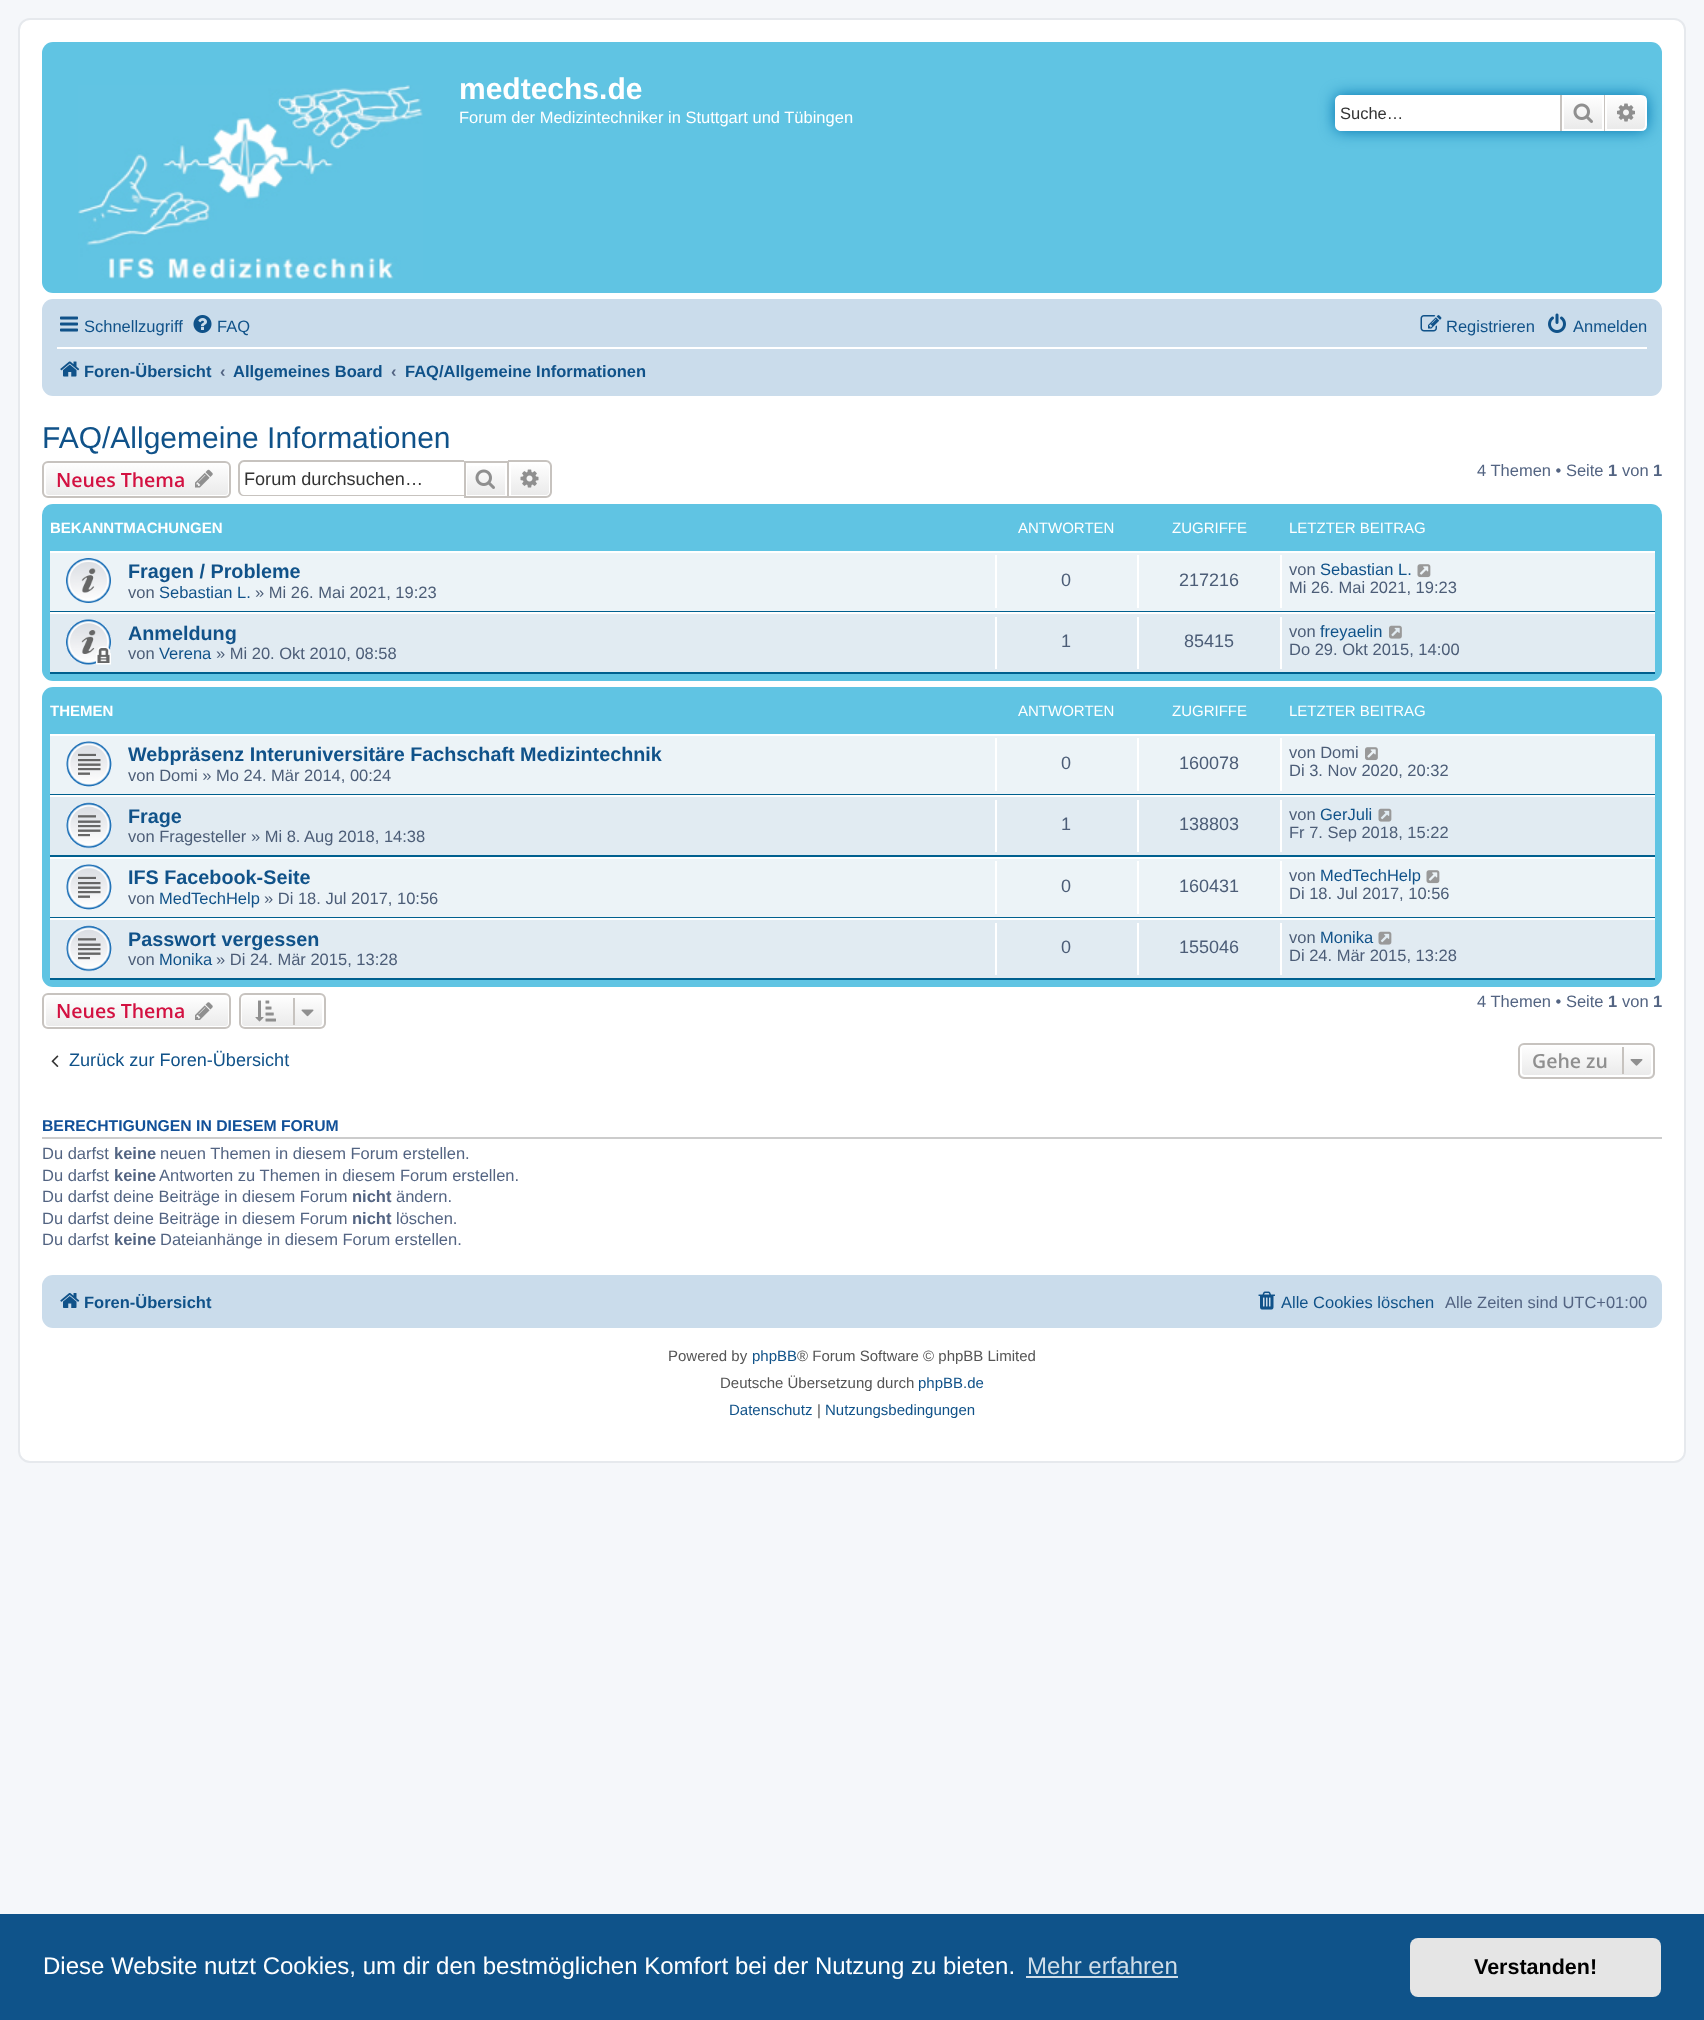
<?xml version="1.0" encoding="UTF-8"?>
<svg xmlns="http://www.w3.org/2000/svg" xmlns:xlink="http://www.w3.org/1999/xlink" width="1704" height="2020">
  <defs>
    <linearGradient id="g1" gradientUnits="userSpaceOnUse" x1="1583" y1="95" x2="1583" y2="131"><stop offset="0" stop-color="#ffffff" /><stop offset="1" stop-color="#e9e9e9" /></linearGradient>
    <linearGradient id="g2" gradientUnits="userSpaceOnUse" x1="1626" y1="95" x2="1626" y2="131"><stop offset="0" stop-color="#ffffff" /><stop offset="1" stop-color="#e9e9e9" /></linearGradient>
    <clipPath id="clip1"><rect x="42" y="461" width="189" height="37" rx="6" /></clipPath>
    <linearGradient id="g3" gradientUnits="userSpaceOnUse" x1="137" y1="462" x2="137" y2="497"><stop offset="0" stop-color="#ffffff" /><stop offset="1" stop-color="#e9e9e9" /></linearGradient>
    <linearGradient id="g4" gradientUnits="userSpaceOnUse" x1="486" y1="462" x2="486" y2="497"><stop offset="0" stop-color="#ffffff" /><stop offset="1" stop-color="#e9e9e9" /></linearGradient>
    <linearGradient id="g5" gradientUnits="userSpaceOnUse" x1="530" y1="462" x2="530" y2="497"><stop offset="0" stop-color="#ffffff" /><stop offset="1" stop-color="#e9e9e9" /></linearGradient>
    <clipPath id="clip2"><rect x="239" y="993" width="87" height="36" rx="6" /></clipPath>
    <linearGradient id="g6" gradientUnits="userSpaceOnUse" x1="282" y1="995" x2="282" y2="1028"><stop offset="0" stop-color="#ffffff" /><stop offset="1" stop-color="#e9e9e9" /></linearGradient>
    <clipPath id="clip3"><rect x="42" y="993" width="189" height="36" rx="6" /></clipPath>
    <linearGradient id="g7" gradientUnits="userSpaceOnUse" x1="137" y1="995" x2="137" y2="1028"><stop offset="0" stop-color="#ffffff" /><stop offset="1" stop-color="#e9e9e9" /></linearGradient>
    <clipPath id="clip4"><rect x="1518" y="1043" width="137" height="36" rx="6" /></clipPath>
    <linearGradient id="g8" gradientUnits="userSpaceOnUse" x1="1586" y1="1044" x2="1586" y2="1077"><stop offset="0" stop-color="#ffffff" /><stop offset="1" stop-color="#e9e9e9" /></linearGradient>
    <clipPath id="clip5"><rect x="50" y="695" width="1605" height="39" /></clipPath>
  </defs>
  <rect width="100%" height="100%" fill="#f5f7fa" />
  <rect x="19" y="19" width="1666" height="1443" rx="11" fill="#ffffff" stroke="#e6e9ed" stroke-width="2" />
  <rect x="42" y="42" width="1620" height="251" rx="11" fill="#60c4e3" />
  <image x="78" y="85" width="345" height="195" xlink:href="image1.png" />
  <rect x="1335" y="95" width="312" height="36" rx="6" fill="#0075b0" filter="blur(7.5px)" />
  <path d="M 1341 95 h 219 v 36 h -219 c -3.5 0 -6 -2.5 -6 -6 v -24 c 0 -3.5 2.5 -6 6 -6 z" fill="#ffffff" />
  <rect x="1564" y="97" width="38" height="32" fill="url(#g1)" />
  <rect x="1563" y="96" width="40" height="34" fill="none" stroke="#ffffff" stroke-width="2" />
  <rect x="1604" y="95" width="1" height="36" fill="#c7c3bf" />
  <rect x="1560" y="95" width="2" height="36" fill="#c7c3bf" />
  <image x="1573" y="103" width="20" height="20" xlink:href="image2.png" />
  <path d="M 1606 96 h 35 c 3 0 5 2 5 5 v 24 c 0 3 -2 5 -5 5 h -35 z" fill="url(#g2)" stroke="#ffffff" stroke-width="2" />
  <image x="1617" y="103" width="18" height="19" xlink:href="image3.png" />
  <rect x="42" y="299" width="1620" height="97" rx="11" fill="#cadceb" />
  <image x="60" y="316" width="18" height="16" xlink:href="image4.png" />
  <image x="193" y="315" width="19" height="18" xlink:href="image5.png" />
  <image x="1420" y="315" width="22" height="17" xlink:href="image6.png" />
  <image x="1548" y="313" width="18" height="20" xlink:href="image7.png" />
  <rect x="57" y="347" width="1590" height="2" fill="#ffffff" />
  <image x="60" y="361" width="20" height="16" xlink:href="image8.png" />
  <g clip-path="url(#clip1)">
    <rect x="42" y="462" width="189" height="35" fill="url(#g3)" />
  </g>
  <rect x="45" y="463" width="184" height="33" rx="4" fill="none" stroke="#ffffff" stroke-width="2" />
  <rect x="43" y="462" width="187" height="35" rx="5" fill="none" stroke="#c7c3bf" stroke-width="2" />
  <image x="195" y="469" width="18" height="19" xlink:href="image9.png" />
  <path d="M 244 460 h 220 v 36 h -220 c -3 0 -6 -2 -6 -6 v -24 c 0 -3 3 -6 6 -6 z m 0 2 h 220 v 33 h -220 c -2 0 -4 -2 -4 -5 v -24 c 0 -2 2 -4 4 -4 z" fill="#c7c3bf" fill-rule="evenodd" />
  <rect x="467" y="466" width="38" height="29" fill="url(#g4)" />
  <rect x="465" y="462" width="43" height="35" fill="none" stroke="#c7c3bf" stroke-width="2" />
  <image x="475" y="469" width="20" height="20" xlink:href="image10.png" />
  <path d="M 510 463 h 36 c 2 0 4 2 4 4 v 25 c 0 2 -2 4 -4 4 h -36 z" fill="url(#g5)" stroke="#ffffff" stroke-width="2" />
  <path d="M 508 460 h 38 c 3 0 6 3 6 6 v 26 c 0 3 -3 6 -6 6 h -38 z m 0 2 h 38 c 2 0 4 2 4 4 v 26 c 0 2 -2 4 -4 4 h -38 z" fill="#c7c3bf" fill-rule="evenodd" />
  <image x="520" y="469" width="19" height="19" xlink:href="image11.png" />
  <rect x="42" y="504" width="1620" height="177" rx="11" fill="#60c4e3" />
  <rect x="50" y="553" width="1605" height="58" fill="#ecf3f7" />
  <rect x="50" y="551" width="1605" height="2" fill="#ffffff" />
  <rect x="50" y="611" width="1605" height="1" fill="#00608f" />
  <image x="66" y="558" width="45" height="45" xlink:href="image12.png" />
  <rect x="995" y="555" width="2" height="53" fill="#ffffff" />
  <rect x="1137" y="555" width="2" height="53" fill="#ffffff" />
  <rect x="1280" y="555" width="2" height="53" fill="#ffffff" />
  <image x="1417" y="564" width="14" height="14" xlink:href="image13.png" />
  <rect x="50" y="614" width="1605" height="58" fill="#e1ebf2" />
  <rect x="50" y="612" width="1605" height="2" fill="#ffffff" />
  <rect x="50" y="672" width="1605" height="2" fill="#00608f" />
  <image x="66" y="619" width="45" height="46" xlink:href="image14.png" />
  <rect x="995" y="617" width="2" height="52" fill="#ffffff" />
  <rect x="1137" y="617" width="2" height="52" fill="#ffffff" />
  <rect x="1280" y="617" width="2" height="52" fill="#ffffff" />
  <image x="1389" y="625" width="13" height="14" xlink:href="image15.png" />
  <rect x="42" y="687" width="1620" height="300" rx="11" fill="#60c4e3" />
  <rect x="50" y="736" width="1605" height="58" fill="#ecf3f7" />
  <rect x="50" y="734" width="1605" height="2" fill="#ffffff" />
  <rect x="50" y="794" width="1605" height="1" fill="#00608f" />
  <image x="66" y="741" width="46" height="46" xlink:href="image16.png" />
  <rect x="995" y="738" width="2" height="53" fill="#ffffff" />
  <rect x="1137" y="738" width="2" height="53" fill="#ffffff" />
  <rect x="1280" y="738" width="2" height="53" fill="#ffffff" />
  <image x="1365" y="747" width="13" height="14" xlink:href="image17.png" />
  <rect x="50" y="797" width="1605" height="58" fill="#e1ebf2" />
  <rect x="50" y="795" width="1605" height="2" fill="#ffffff" />
  <rect x="50" y="855" width="1605" height="2" fill="#00608f" />
  <image x="66" y="802" width="46" height="47" xlink:href="image18.png" />
  <rect x="995" y="800" width="2" height="52" fill="#ffffff" />
  <rect x="1137" y="800" width="2" height="52" fill="#ffffff" />
  <rect x="1280" y="800" width="2" height="52" fill="#ffffff" />
  <image x="1378" y="808" width="14" height="14" xlink:href="image19.png" />
  <rect x="50" y="859" width="1605" height="58" fill="#ecf3f7" />
  <rect x="50" y="857" width="1605" height="2" fill="#ffffff" />
  <rect x="50" y="917" width="1605" height="1" fill="#00608f" />
  <image x="66" y="864" width="46" height="46" xlink:href="image16.png" />
  <rect x="995" y="861" width="2" height="53" fill="#ffffff" />
  <rect x="1137" y="861" width="2" height="53" fill="#ffffff" />
  <rect x="1280" y="861" width="2" height="53" fill="#ffffff" />
  <image x="1426" y="870" width="14" height="14" xlink:href="image13.png" />
  <rect x="50" y="920" width="1605" height="58" fill="#e1ebf2" />
  <rect x="50" y="918" width="1605" height="2" fill="#ffffff" />
  <rect x="50" y="978" width="1605" height="2" fill="#00608f" />
  <image x="66" y="925" width="46" height="47" xlink:href="image18.png" />
  <rect x="995" y="923" width="2" height="52" fill="#ffffff" />
  <rect x="1137" y="923" width="2" height="52" fill="#ffffff" />
  <rect x="1280" y="923" width="2" height="52" fill="#ffffff" />
  <image x="1378" y="931" width="14" height="14" xlink:href="image19.png" />
  <g clip-path="url(#clip2)">
    <rect x="239" y="995" width="87" height="33" fill="url(#g6)" />
  </g>
  <rect x="241" y="996" width="82" height="31" rx="4" fill="none" stroke="#ffffff" stroke-width="2" />
  <rect x="240" y="994" width="85" height="34" rx="5" fill="none" stroke="#c7c3bf" stroke-width="2" />
  <image x="255" y="1000" width="21" height="22" xlink:href="image20.png" />
  <rect x="293" y="998" width="2" height="27" fill="#c7c3bf" />
  <image x="301" y="1009" width="13" height="8" xlink:href="image21.png" />
  <g clip-path="url(#clip3)">
    <rect x="42" y="995" width="189" height="33" fill="url(#g7)" />
  </g>
  <rect x="45" y="996" width="184" height="31" rx="4" fill="none" stroke="#ffffff" stroke-width="2" />
  <rect x="43" y="994" width="187" height="34" rx="5" fill="none" stroke="#c7c3bf" stroke-width="2" />
  <image x="195" y="1002" width="18" height="18" xlink:href="image22.png" />
  <image x="51" y="1055" width="8" height="12" xlink:href="image23.png" />
  <g clip-path="url(#clip4)">
    <rect x="1518" y="1044" width="137" height="33" fill="url(#g8)" />
  </g>
  <rect x="1521" y="1045" width="131" height="31" rx="4" fill="none" stroke="#ffffff" stroke-width="2" />
  <rect x="1519" y="1044" width="135" height="34" rx="5" fill="none" stroke="#c7c3bf" stroke-width="2" />
  <rect x="1622" y="1047" width="2" height="27" fill="#c7c3bf" />
  <image x="1630" y="1059" width="13" height="7" xlink:href="image24.png" />
  <rect x="42" y="1137" width="1620" height="2" fill="#cccccc" />
  <rect x="42" y="1275" width="1620" height="53" rx="11" fill="#cadceb" />
  <image x="60" y="1293" width="20" height="15" xlink:href="image25.png" />
  <image x="1258" y="1291" width="17" height="19" xlink:href="image26.png" />
  <rect y="1914" width="1704" height="106" fill="#0f538a" />
  <rect x="1026" y="1976" width="152" height="2" fill="#cfdde8" />
  <rect x="1410" y="1938" width="251" height="59" rx="8" fill="#e5e5e5" />
  <text x="459" y="99" style="font-family: Liberation Sans; font-size: 30px; font-weight: bold; fill: #ffffff">medtechs.de</text>
  <text x="459" y="123" style="font-family: Liberation Sans; font-size: 16.5px; fill: #ffffff">Forum der Medizintechniker in Stuttgart und Tübingen</text>
  <text x="1340" y="119" style="font-family: Liberation Sans; font-size: 16.5px; fill: #333333">Suche…</text>
  <text x="84" y="332" style="font-family: Liberation Sans; font-size: 16.5px; fill: #105289">Schnellzugriff</text>
  <text x="217" y="332" style="font-family: Liberation Sans; font-size: 16.5px; fill: #105289">FAQ</text>
  <text x="1446" y="332" style="font-family: Liberation Sans; font-size: 16.5px; fill: #105289">Registrieren</text>
  <text x="1573" y="332" style="font-family: Liberation Sans; font-size: 16.5px; fill: #105289">Anmelden</text>
  <text x="84" y="377" style="font-family: Liberation Sans; font-size: 16.5px; font-weight: bold; fill: #105289">Foren-Übersicht</text>
  <text x="220" y="377" style="font-family: Liberation Sans; font-size: 16.5px; font-weight: bold; fill: #536482">‹</text>
  <text x="233" y="377" style="font-family: Liberation Sans; font-size: 16.5px; font-weight: bold; fill: #105289">Allgemeines Board</text>
  <text x="391" y="377" style="font-family: Liberation Sans; font-size: 16.5px; font-weight: bold; fill: #536482">‹</text>
  <text x="405" y="377" style="font-family: Liberation Sans; font-size: 16.5px; font-weight: bold; fill: #105289">FAQ/Allgemeine Informationen</text>
  <text x="42" y="448" style="font-family: Liberation Sans; font-size: 30px; fill: #105289">FAQ/Allgemeine Informationen</text>
  <text x="56" y="487" style="font-family: Open Sans; font-size: 19.5px; font-weight: 600; fill: #d31141">Neues Thema</text>
  <text x="244" y="485" style="font-family: Liberation Sans; font-size: 18.1px; fill: #333333">Forum durchsuchen…</text>
  <text x="1477" y="476" style="font-family: Liberation Sans; font-size: 16.5px; fill: #536482">4 Themen • Seite</text>
  <text x="1608" y="476" style="font-family: Liberation Sans; font-size: 16.5px; font-weight: bold; fill: #536482">1</text>
  <text x="1622" y="476" style="font-family: Liberation Sans; font-size: 16.5px; fill: #536482">von</text>
  <text x="1653" y="476" style="font-family: Liberation Sans; font-size: 16.5px; font-weight: bold; fill: #536482">1</text>
  <text x="50" y="533" style="font-family: Liberation Sans; font-size: 15px; font-weight: bold; fill: #ffffff">BEKANNTMACHUNGEN</text>
  <text x="1018" y="533" style="font-family: Liberation Sans; font-size: 15px; fill: #ffffff">ANTWORTEN</text>
  <text x="1172" y="533" style="font-family: Liberation Sans; font-size: 15px; fill: #ffffff">ZUGRIFFE</text>
  <text x="1289" y="533" style="font-family: Liberation Sans; font-size: 15px; fill: #ffffff">LETZTER BEITRAG</text>
  <text x="128" y="578" style="font-family: Liberation Sans; font-size: 19.8px; font-weight: bold; fill: #105289">Fragen / Probleme</text>
  <text x="128" y="598" style="font-family: Liberation Sans; font-size: 16.5px; fill: #4c5d77">von</text>
  <text x="159" y="598" style="font-family: Liberation Sans; font-size: 16.5px; fill: #105289">Sebastian L.</text>
  <text x="255" y="598" style="font-family: Liberation Sans; font-size: 16.5px; fill: #4c5d77">» Mi 26. Mai 2021, 19:23</text>
  <text x="1061" y="586" style="font-family: Liberation Sans; font-size: 18px; fill: #4c5d77">0</text>
  <text x="1179" y="586" style="font-family: Liberation Sans; font-size: 18px; fill: #4c5d77">217216</text>
  <text x="1289" y="575" style="font-family: Liberation Sans; font-size: 16.5px; fill: #4c5d77">von</text>
  <text x="1320" y="575" style="font-family: Liberation Sans; font-size: 16.5px; fill: #105289">Sebastian L.</text>
  <text x="1289" y="593" style="font-family: Liberation Sans; font-size: 16.5px; fill: #4c5d77">Mi 26. Mai 2021, 19:23</text>
  <text x="128" y="640" style="font-family: Liberation Sans; font-size: 19.8px; font-weight: bold; fill: #105289">Anmeldung</text>
  <text x="128" y="659" style="font-family: Liberation Sans; font-size: 16.5px; fill: #4c5d77">von</text>
  <text x="159" y="659" style="font-family: Liberation Sans; font-size: 16.5px; fill: #105289">Verena</text>
  <text x="216" y="659" style="font-family: Liberation Sans; font-size: 16.5px; fill: #4c5d77">» Mi 20. Okt 2010, 08:58</text>
  <text x="1061" y="647" style="font-family: Liberation Sans; font-size: 18px; fill: #4c5d77">1</text>
  <text x="1184" y="647" style="font-family: Liberation Sans; font-size: 18px; fill: #4c5d77">85415</text>
  <text x="1289" y="637" style="font-family: Liberation Sans; font-size: 16.5px; fill: #4c5d77">von</text>
  <text x="1320" y="637" style="font-family: Liberation Sans; font-size: 16.5px; fill: #105289">freyaelin</text>
  <text x="1289" y="655" style="font-family: Liberation Sans; font-size: 16.5px; fill: #4c5d77">Do 29. Okt 2015, 14:00</text>
  <g clip-path="url(#clip5)">
    <text x="50" y="716" style="font-family: Liberation Sans; font-size: 15px; font-weight: bold; fill: #ffffff">THEMEN</text>
  </g>
  <text x="1018" y="716" style="font-family: Liberation Sans; font-size: 15px; fill: #ffffff">ANTWORTEN</text>
  <text x="1172" y="716" style="font-family: Liberation Sans; font-size: 15px; fill: #ffffff">ZUGRIFFE</text>
  <text x="1289" y="716" style="font-family: Liberation Sans; font-size: 15px; fill: #ffffff">LETZTER BEITRAG</text>
  <text x="128" y="761" style="font-family: Liberation Sans; font-size: 19.8px; font-weight: bold; fill: #105289">Webpräsenz Interuniversitäre Fachschaft Medizintechnik</text>
  <text x="128" y="781" style="font-family: Liberation Sans; font-size: 16.5px; fill: #4c5d77">von Domi » Mo 24. Mär 2014, 00:24</text>
  <text x="1061" y="769" style="font-family: Liberation Sans; font-size: 18px; fill: #4c5d77">0</text>
  <text x="1179" y="769" style="font-family: Liberation Sans; font-size: 18px; fill: #4c5d77">160078</text>
  <text x="1289" y="758" style="font-family: Liberation Sans; font-size: 16.5px; fill: #4c5d77">von Domi</text>
  <text x="1289" y="776" style="font-family: Liberation Sans; font-size: 16.5px; fill: #4c5d77">Di 3. Nov 2020, 20:32</text>
  <text x="128" y="823" style="font-family: Liberation Sans; font-size: 19.8px; font-weight: bold; fill: #105289">Frage</text>
  <text x="128" y="842" style="font-family: Liberation Sans; font-size: 16.5px; fill: #4c5d77">von Fragesteller » Mi 8. Aug 2018, 14:38</text>
  <text x="1061" y="830" style="font-family: Liberation Sans; font-size: 18px; fill: #4c5d77">1</text>
  <text x="1179" y="830" style="font-family: Liberation Sans; font-size: 18px; fill: #4c5d77">138803</text>
  <text x="1289" y="820" style="font-family: Liberation Sans; font-size: 16.5px; fill: #4c5d77">von</text>
  <text x="1320" y="820" style="font-family: Liberation Sans; font-size: 16.5px; fill: #105289">GerJuli</text>
  <text x="1289" y="838" style="font-family: Liberation Sans; font-size: 16.5px; fill: #4c5d77">Fr 7. Sep 2018, 15:22</text>
  <text x="128" y="884" style="font-family: Liberation Sans; font-size: 19.8px; font-weight: bold; fill: #105289">IFS Facebook-Seite</text>
  <text x="128" y="904" style="font-family: Liberation Sans; font-size: 16.5px; fill: #4c5d77">von</text>
  <text x="159" y="904" style="font-family: Liberation Sans; font-size: 16.5px; fill: #105289">MedTechHelp</text>
  <text x="264" y="904" style="font-family: Liberation Sans; font-size: 16.5px; fill: #4c5d77">» Di 18. Jul 2017, 10:56</text>
  <text x="1061" y="892" style="font-family: Liberation Sans; font-size: 18px; fill: #4c5d77">0</text>
  <text x="1179" y="892" style="font-family: Liberation Sans; font-size: 18px; fill: #4c5d77">160431</text>
  <text x="1289" y="881" style="font-family: Liberation Sans; font-size: 16.5px; fill: #4c5d77">von</text>
  <text x="1320" y="881" style="font-family: Liberation Sans; font-size: 16.5px; fill: #105289">MedTechHelp</text>
  <text x="1289" y="899" style="font-family: Liberation Sans; font-size: 16.5px; fill: #4c5d77">Di 18. Jul 2017, 10:56</text>
  <text x="128" y="946" style="font-family: Liberation Sans; font-size: 19.8px; font-weight: bold; fill: #105289">Passwort vergessen</text>
  <text x="128" y="965" style="font-family: Liberation Sans; font-size: 16.5px; fill: #4c5d77">von</text>
  <text x="159" y="965" style="font-family: Liberation Sans; font-size: 16.5px; fill: #105289">Monika</text>
  <text x="216" y="965" style="font-family: Liberation Sans; font-size: 16.5px; fill: #4c5d77">» Di 24. Mär 2015, 13:28</text>
  <text x="1061" y="953" style="font-family: Liberation Sans; font-size: 18px; fill: #4c5d77">0</text>
  <text x="1179" y="953" style="font-family: Liberation Sans; font-size: 18px; fill: #4c5d77">155046</text>
  <text x="1289" y="943" style="font-family: Liberation Sans; font-size: 16.5px; fill: #4c5d77">von</text>
  <text x="1320" y="943" style="font-family: Liberation Sans; font-size: 16.5px; fill: #105289">Monika</text>
  <text x="1289" y="961" style="font-family: Liberation Sans; font-size: 16.5px; fill: #4c5d77">Di 24. Mär 2015, 13:28</text>
  <text x="1477" y="1007" style="font-family: Liberation Sans; font-size: 16.5px; fill: #536482">4 Themen • Seite</text>
  <text x="1608" y="1007" style="font-family: Liberation Sans; font-size: 16.5px; font-weight: bold; fill: #536482">1</text>
  <text x="1622" y="1007" style="font-family: Liberation Sans; font-size: 16.5px; fill: #536482">von</text>
  <text x="1653" y="1007" style="font-family: Liberation Sans; font-size: 16.5px; font-weight: bold; fill: #536482">1</text>
  <text x="56" y="1018" style="font-family: Open Sans; font-size: 19.5px; font-weight: 600; fill: #d31141">Neues Thema</text>
  <text x="69" y="1066" style="font-family: Liberation Sans; font-size: 18.1px; fill: #105289">Zurück zur Foren-Übersicht</text>
  <text x="1532" y="1068" style="font-family: Open Sans; font-size: 19.5px; font-weight: 600; fill: #8f8f8f">Gehe zu</text>
  <text x="42" y="1131" style="font-family: Liberation Sans; font-size: 15.75px; font-weight: bold; fill: #115098">BERECHTIGUNGEN IN DIESEM FORUM</text>
  <text x="42" y="1159" style="font-family: Liberation Sans; font-size: 16.5px; fill: #536482">Du darfst</text>
  <text x="114" y="1159" style="font-family: Liberation Sans; font-size: 16.5px; font-weight: bold; fill: #536482">keine</text>
  <text x="160" y="1159" style="font-family: Liberation Sans; font-size: 16.5px; fill: #536482">neuen Themen in diesem Forum erstellen.</text>
  <text x="42" y="1181" style="font-family: Liberation Sans; font-size: 16.5px; fill: #536482">Du darfst</text>
  <text x="114" y="1181" style="font-family: Liberation Sans; font-size: 16.5px; font-weight: bold; fill: #536482">keine</text>
  <text x="159" y="1181" style="font-family: Liberation Sans; font-size: 16.5px; fill: #536482">Antworten zu Themen in diesem Forum erstellen.</text>
  <text x="42" y="1202" style="font-family: Liberation Sans; font-size: 16.5px; fill: #536482">Du darfst deine Beiträge in diesem Forum</text>
  <text x="352" y="1202" style="font-family: Liberation Sans; font-size: 16.5px; font-weight: bold; fill: #536482">nicht</text>
  <text x="396" y="1202" style="font-family: Liberation Sans; font-size: 16.5px; fill: #536482">ändern.</text>
  <text x="42" y="1224" style="font-family: Liberation Sans; font-size: 16.5px; fill: #536482">Du darfst deine Beiträge in diesem Forum</text>
  <text x="352" y="1224" style="font-family: Liberation Sans; font-size: 16.5px; font-weight: bold; fill: #536482">nicht</text>
  <text x="396" y="1224" style="font-family: Liberation Sans; font-size: 16.5px; fill: #536482">löschen.</text>
  <text x="42" y="1245" style="font-family: Liberation Sans; font-size: 16.5px; fill: #536482">Du darfst</text>
  <text x="114" y="1245" style="font-family: Liberation Sans; font-size: 16.5px; font-weight: bold; fill: #536482">keine</text>
  <text x="160" y="1245" style="font-family: Liberation Sans; font-size: 16.5px; fill: #536482">Dateianhänge in diesem Forum erstellen.</text>
  <text x="84" y="1308" style="font-family: Liberation Sans; font-size: 16.5px; font-weight: bold; fill: #105289">Foren-Übersicht</text>
  <text x="1281" y="1308" style="font-family: Liberation Sans; font-size: 16.5px; fill: #105289">Alle Cookies löschen</text>
  <text x="1445" y="1308" style="font-family: Liberation Sans; font-size: 16.5px; fill: #536482">Alle Zeiten sind UTC+01:00</text>
  <text x="668" y="1361" style="font-family: Liberation Sans; font-size: 15px; fill: #555555">Powered by</text>
  <text x="752" y="1361" style="font-family: Liberation Sans; font-size: 15px; fill: #105289">phpBB</text>
  <text x="797" y="1361" style="font-family: Liberation Sans; font-size: 15px; fill: #555555">® Forum Software © phpBB Limited</text>
  <text x="720" y="1388" style="font-family: Liberation Sans; font-size: 15px; fill: #555555">Deutsche Übersetzung durch</text>
  <text x="918" y="1388" style="font-family: Liberation Sans; font-size: 15px; fill: #105289">phpBB.de</text>
  <text x="729" y="1415" style="font-family: Liberation Sans; font-size: 15px; fill: #105289">Datenschutz</text>
  <text x="817" y="1415" style="font-family: Liberation Sans; font-size: 15px; fill: #555555">|</text>
  <text x="825" y="1415" style="font-family: Liberation Sans; font-size: 15px; fill: #105289">Nutzungsbedingungen</text>
  <text x="43" y="1974" style="font-family: Liberation Sans; font-size: 24px; fill: #ffffff">Diese Website nutzt Cookies, um dir den bestmöglichen Komfort bei der Nutzung zu bieten.</text>
  <text x="1027" y="1974" style="font-family: Liberation Sans; font-size: 24px; fill: #cfdde8">Mehr erfahren</text>
  <text x="1474" y="1974" style="font-family: Liberation Sans; font-size: 21.5px; font-weight: bold; fill: #000000">Verstanden!</text>
</svg>
